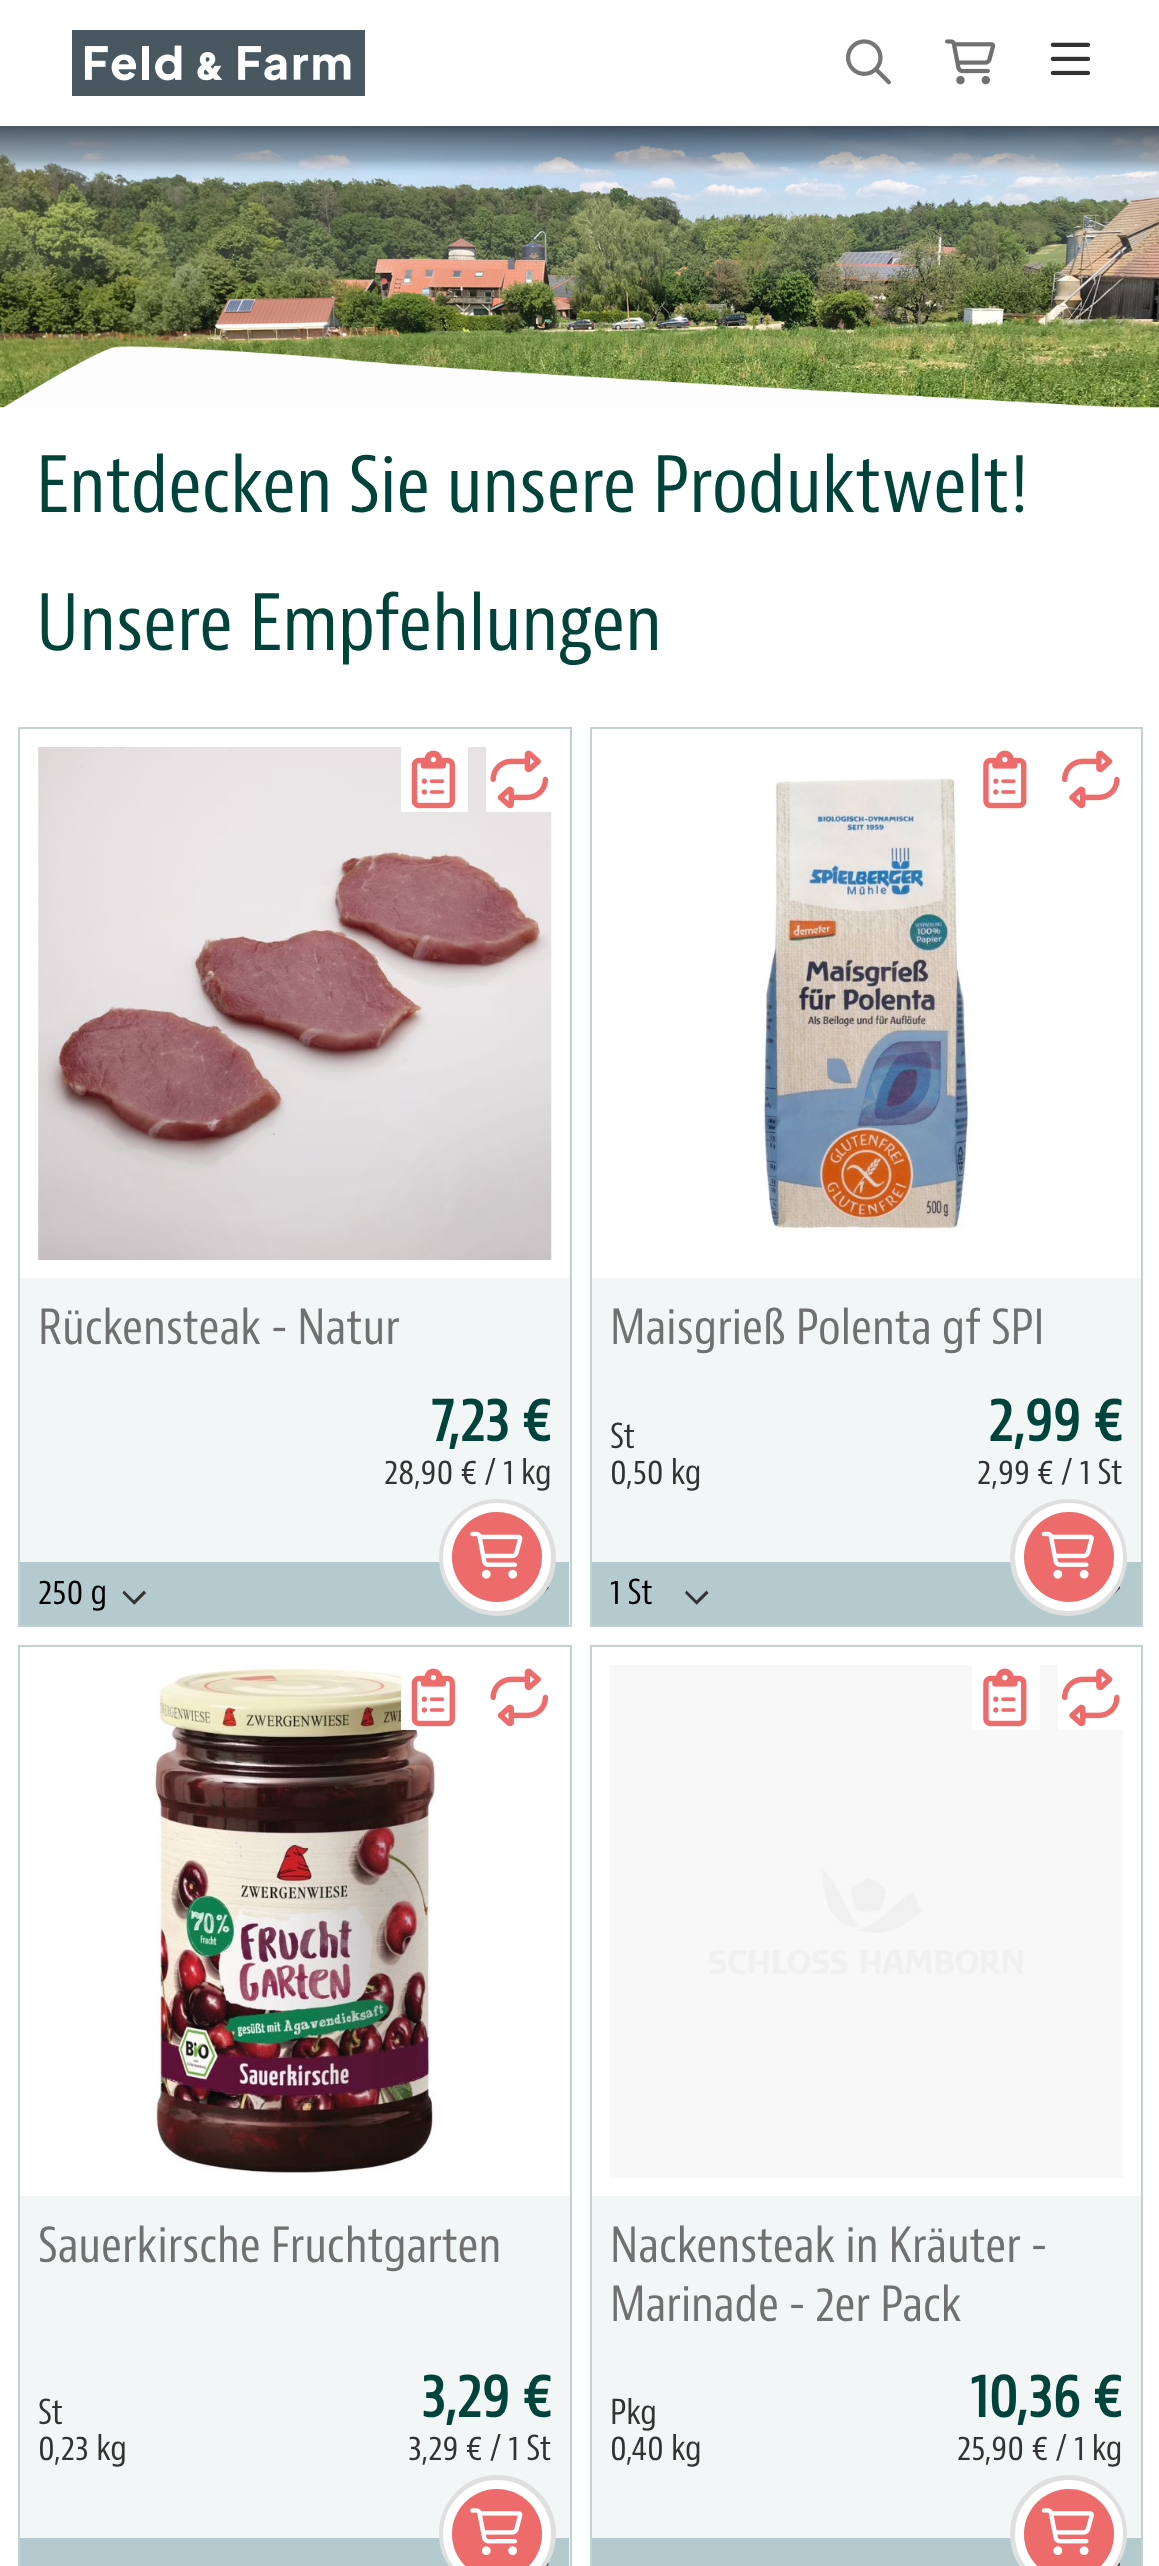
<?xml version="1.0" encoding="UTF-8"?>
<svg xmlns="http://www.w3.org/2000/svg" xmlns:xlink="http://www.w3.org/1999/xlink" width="1159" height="2566">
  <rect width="100%" height="100%" fill="#ffffff" />
  <image x="72" y="30" width="293" height="66" xlink:href="image1.png" />
  <image x="846" y="39" width="45" height="46" xlink:href="image2.png" />
  <image x="945" y="39" width="51" height="46" xlink:href="image3.png" />
  <image x="1050" y="42" width="41" height="34" xlink:href="image4.png" />
  <image x="0" y="126" width="1159" height="282" xlink:href="image5.png" />
  <image x="2" y="346" width="1128" height="62" xlink:href="image6.png" />
  <rect x="19" y="728" width="552" height="898" fill="#f3f6f6" stroke="#c2d2d0" stroke-width="2" />
  <rect x="20" y="729" width="549" height="549" fill="#ffffff" />
  <image x="38" y="747" width="514" height="513" xlink:href="image9.png" />
  <rect x="401" y="747" width="67" height="65" fill="#ffffff" />
  <image x="411" y="750" width="44" height="59" xlink:href="image7.png" />
  <rect x="486" y="747" width="66" height="65" fill="#ffffff" />
  <image x="490" y="750" width="59" height="59" xlink:href="image8.png" />
  <rect x="20" y="1562" width="549" height="63" fill="#b4cacf" />
  <path d="M 134.5 1604.5 l 11.5 -11.5 l -2 -2.5 l -10 10 l -10 -10 l -1.5 2.5 l 11.5 11.5 z" fill="#333333" fill-rule="evenodd" />
  <image x="526" y="1586" width="23" height="14" xlink:href="image10.png" />
  <circle cx="497.5" cy="1557.5" r="51.5" fill="none" stroke="#dfdfdf" stroke-width="14" />
  <circle cx="497" cy="1557" r="49.5" fill="none" stroke="#ffffff" stroke-width="9" />
  <circle cx="497" cy="1557" r="45" fill="#ed6b6a" />
  <image x="470" y="1531" width="53" height="48" xlink:href="image11.png" />
  <rect x="592" y="1278" width="549" height="284" fill="#f3f6f6" />
  <rect x="591" y="728" width="551" height="898" fill="none" stroke="#c2d2d0" stroke-width="2" />
  <image x="983" y="750" width="44" height="59" xlink:href="image12.png" />
  <image x="1062" y="750" width="58" height="59" xlink:href="image13.png" />
  <image x="761" y="777" width="211" height="455" xlink:href="image14.png" />
  <rect x="592" y="1562" width="549" height="63" fill="#b4cacf" />
  <path d="M 697 1604.5 l 11.5 -11.5 l -2 -2.5 l -10 10 l -10 -10 l -1.5 2.5 l 11.5 11.5 z" fill="#333333" fill-rule="evenodd" />
  <image x="1098" y="1586" width="22" height="14" xlink:href="image15.png" />
  <circle cx="1068.5" cy="1557.5" r="51.5" fill="none" stroke="#dfdfdf" stroke-width="14" />
  <circle cx="1069" cy="1557" r="49.5" fill="none" stroke="#ffffff" stroke-width="9" />
  <circle cx="1069" cy="1557" r="45" fill="#ed6b6a" />
  <image x="1041" y="1531" width="53" height="48" xlink:href="image16.png" />
  <rect x="19" y="1646" width="552" height="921" fill="#f3f6f6" stroke="#c2d2d0" stroke-width="2" />
  <rect x="20" y="1647" width="549" height="549" fill="#ffffff" />
  <image x="152" y="1665" width="284" height="511" xlink:href="image17.png" />
  <rect x="401" y="1665" width="30" height="65" fill="#ffffff" />
  <image x="411" y="1668" width="44" height="59" xlink:href="image7.png" />
  <image x="490" y="1668" width="59" height="59" xlink:href="image8.png" />
  <rect x="20" y="2538" width="549" height="28" fill="#b4cacf" />
  <image x="528" y="2563" width="21" height="3" xlink:href="image19.png" />
  <circle cx="497.5" cy="2533.5" r="51.5" fill="none" stroke="#dfdfdf" stroke-width="14" />
  <circle cx="497" cy="2534" r="49.5" fill="none" stroke="#ffffff" stroke-width="9" />
  <circle cx="497" cy="2534" r="45" fill="#ed6b6a" />
  <image x="470" y="2508" width="53" height="48" xlink:href="image18.png" />
  <rect x="592" y="2196" width="549" height="342" fill="#f3f6f6" />
  <rect x="591" y="1646" width="551" height="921" fill="none" stroke="#c2d2d0" stroke-width="2" />
  <image x="610" y="1665" width="513" height="513" xlink:href="image20.png" />
  <rect x="972" y="1665" width="68" height="65" fill="#ffffff" />
  <image x="983" y="1668" width="44" height="59" xlink:href="image12.png" />
  <rect x="1058" y="1665" width="65" height="65" fill="#ffffff" />
  <image x="1062" y="1668" width="58" height="59" xlink:href="image13.png" />
  <rect x="592" y="2538" width="549" height="28" fill="#b4cacf" />
  <image x="1117" y="2562" width="3" height="4" xlink:href="image22.png" />
  <circle cx="1068.5" cy="2533.5" r="51.5" fill="none" stroke="#dfdfdf" stroke-width="14" />
  <circle cx="1069" cy="2534" r="49.5" fill="none" stroke="#ffffff" stroke-width="9" />
  <circle cx="1069" cy="2534" r="45" fill="#ed6b6a" />
  <image x="1041" y="2508" width="53" height="48" xlink:href="image21.png" />
  <text x="36" y="512" style="font-family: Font; font-size: 81px; fill: #00433a">Entdecken Sie unsere Produktwelt!</text>
  <text x="36" y="650" style="font-family: Font; font-size: 81px; fill: #00433a">Unsere Empfehlungen</text>
  <text x="38" y="1344" style="font-family: 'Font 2'; font-size: 50.5px; fill: #707070">Rückensteak - Natur</text>
  <text x="431" y="1441" style="font-family: Font; font-size: 63px; font-weight: bold; fill: #00433a">7,23 €</text>
  <text x="384" y="1484" style="font-family: 'Font 2'; font-size: 36px; fill: #333333">28,90 € / 1 kg</text>
  <text x="38" y="1604" style="font-family: 'Font 2'; font-size: 36px; fill: #000000">250 g</text>
  <text x="610" y="1344" style="font-family: 'Font 2'; font-size: 50.5px; fill: #707070">Maisgrieß Polenta gf SPI</text>
  <text x="610" y="1448" style="font-family: 'Font 2'; font-size: 36px; fill: #333333">St</text>
  <text x="610" y="1484" style="font-family: 'Font 2'; font-size: 36px; fill: #333333">0,50 kg</text>
  <text x="988" y="1441" style="font-family: Font; font-size: 63px; font-weight: bold; fill: #00433a">2,99 €</text>
  <text x="977" y="1484" style="font-family: 'Font 2'; font-size: 36px; fill: #333333">2,99 € / 1 St</text>
  <text x="610" y="1604" style="font-family: 'Font 2'; font-size: 36px; fill: #000000">1 St</text>
  <text x="38" y="2262" style="font-family: 'Font 2'; font-size: 50.5px; fill: #707070">Sauerkirsche Fruchtgarten</text>
  <text x="38" y="2424" style="font-family: 'Font 2'; font-size: 36px; fill: #333333">St</text>
  <text x="38" y="2460" style="font-family: 'Font 2'; font-size: 36px; fill: #333333">0,23 kg</text>
  <text x="421" y="2417" style="font-family: Font; font-size: 63px; font-weight: bold; fill: #00433a">3,29 €</text>
  <text x="408" y="2460" style="font-family: 'Font 2'; font-size: 36px; fill: #333333">3,29 € / 1 St</text>
  <text x="610" y="2262" style="font-family: 'Font 2'; font-size: 50.5px; fill: #707070">Nackensteak in Kräuter -</text>
  <text x="610" y="2321" style="font-family: 'Font 2'; font-size: 50.5px; fill: #707070">Marinade - 2er Pack</text>
  <text x="610" y="2424" style="font-family: 'Font 2'; font-size: 36px; fill: #333333">Pkg</text>
  <text x="610" y="2460" style="font-family: 'Font 2'; font-size: 36px; fill: #333333">0,40 kg</text>
  <text x="970" y="2417" style="font-family: Font; font-size: 63px; font-weight: bold; fill: #00433a">10,36 €</text>
  <text x="957" y="2460" style="font-family: 'Font 2'; font-size: 36px; fill: #333333">25,90 € / 1 kg</text>
</svg>
